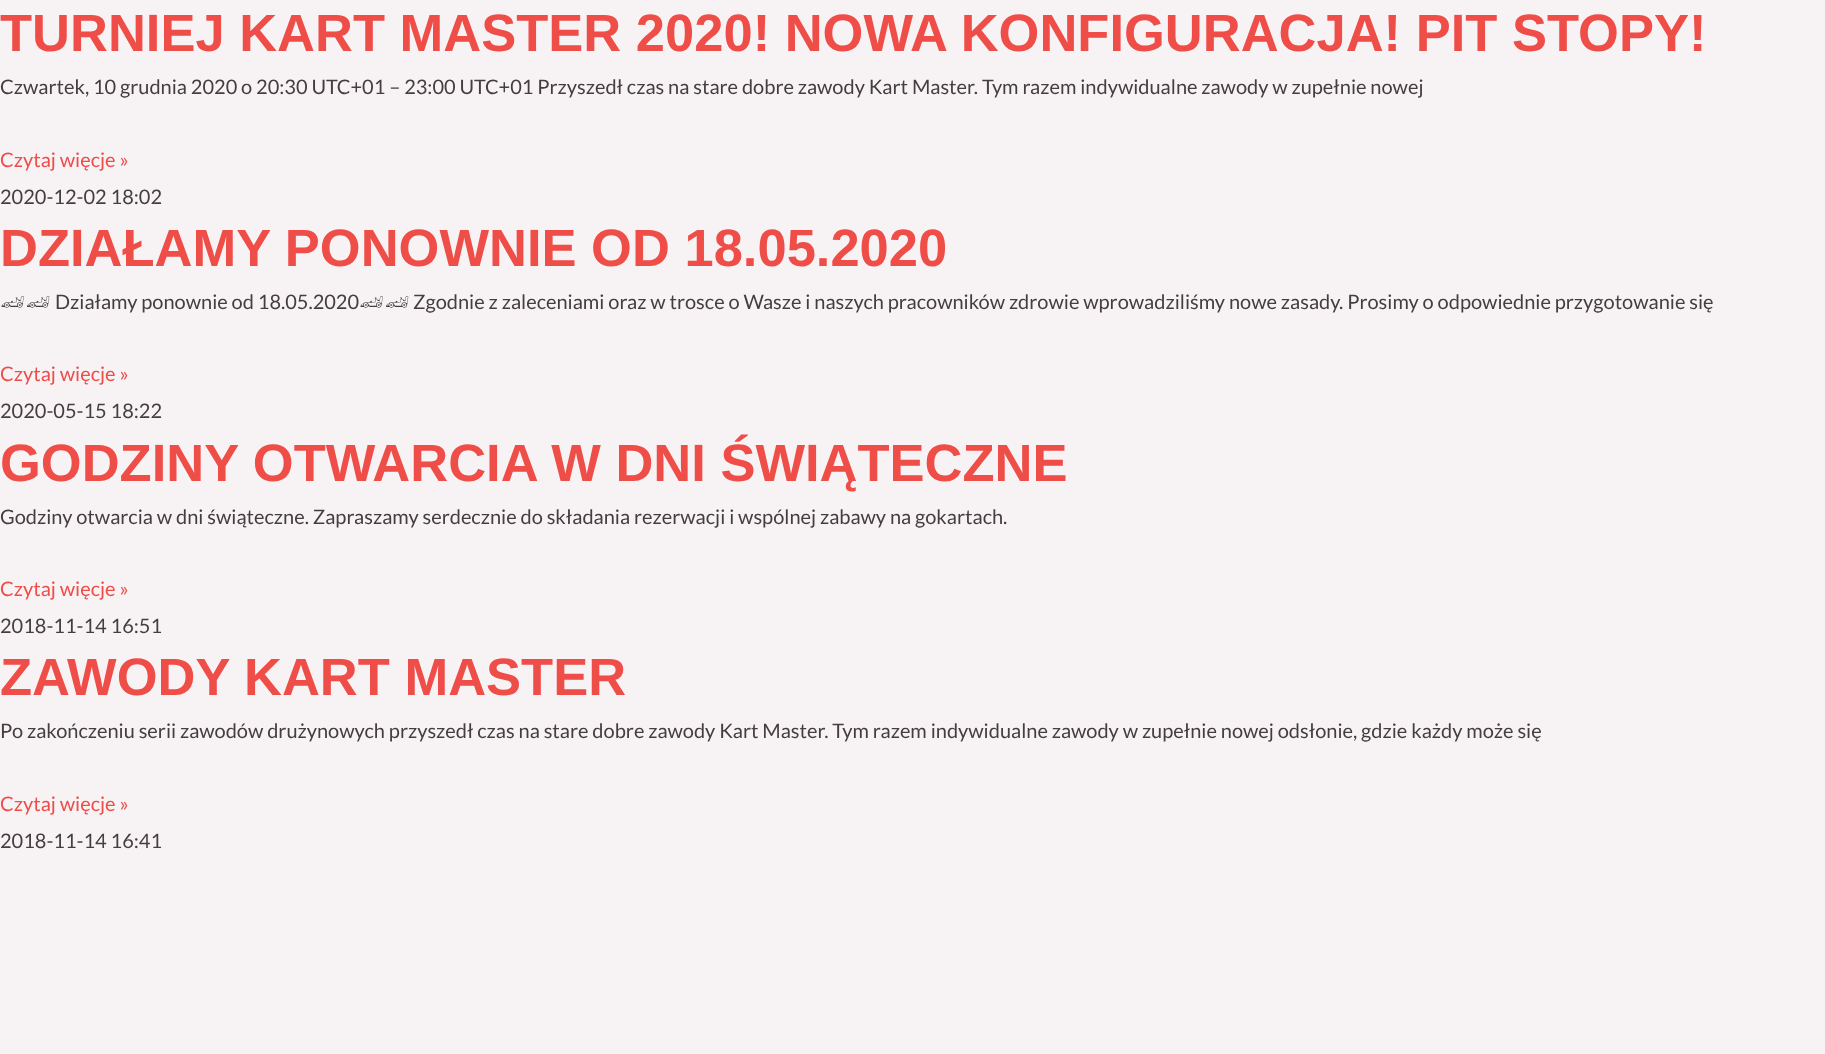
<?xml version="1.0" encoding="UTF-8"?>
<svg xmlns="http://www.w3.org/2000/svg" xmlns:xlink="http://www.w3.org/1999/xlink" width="1825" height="1054">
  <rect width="100%" height="100%" fill="#f7f3f5" />
  <text x="0" y="51" style="font-family: Liberation Sans; font-size: 52.5px; font-weight: bold; fill: #ef4d48">TURNIEJ KART MASTER 2020! NOWA KONFIGURACJA! PIT STOPY!</text>
  <text x="0" y="94" style="font-family: Lato; font-size: 20px; fill: #453e3e">Czwartek, 10 grudnia 2020 o 20:30 UTC+01 – 23:00 UTC+01 Przyszedł czas na stare dobre zawody Kart Master. Tym razem indywidualne zawody w zupełnie nowej</text>
  <text x="0" y="167" style="font-family: Lato; font-size: 20px; fill: #ef4d48">Czytaj więcje »</text>
  <text x="0" y="204" style="font-family: Lato; font-size: 20px; fill: #453e3e">2020-12-02 18:02</text>
  <text x="0" y="266" style="font-family: Liberation Sans; font-size: 52.5px; font-weight: bold; fill: #ef4d48">DZIAŁAMY PONOWNIE OD 18.05.2020</text>
  <text x="0" y="309" style="font-family: Noto Emoji; font-size: 20px; font-weight: 300; fill: #453e3e">🏎🏎</text>
  <text x="55" y="309" style="font-family: Lato; font-size: 20px; fill: #453e3e">Działamy ponownie od 18.05.2020</text>
  <text x="359" y="309" style="font-family: Noto Emoji; font-size: 20px; font-weight: 300; fill: #453e3e">🏎🏎</text>
  <text x="413" y="309" style="font-family: Lato; font-size: 20px; fill: #453e3e">Zgodnie z zaleceniami oraz w trosce o Wasze i naszych pracowników zdrowie wprowadziliśmy nowe zasady. Prosimy o odpowiednie przygotowanie się</text>
  <text x="0" y="381" style="font-family: Lato; font-size: 20px; fill: #ef4d48">Czytaj więcje »</text>
  <text x="0" y="418" style="font-family: Lato; font-size: 20px; fill: #453e3e">2020-05-15 18:22</text>
  <text x="0" y="481" style="font-family: Liberation Sans; font-size: 52.5px; font-weight: bold; fill: #ef4d48">GODZINY OTWARCIA W DNI ŚWIĄTECZNE</text>
  <text x="0" y="524" style="font-family: Lato; font-size: 20px; fill: #453e3e">Godziny otwarcia w dni świąteczne. Zapraszamy serdecznie do składania rezerwacji i wspólnej zabawy na gokartach.</text>
  <text x="0" y="596" style="font-family: Lato; font-size: 20px; fill: #ef4d48">Czytaj więcje »</text>
  <text x="0" y="633" style="font-family: Lato; font-size: 20px; fill: #453e3e">2018-11-14 16:51</text>
  <text x="0" y="695" style="font-family: Liberation Sans; font-size: 52.5px; font-weight: bold; fill: #ef4d48">ZAWODY KART MASTER</text>
  <text x="0" y="738" style="font-family: Lato; font-size: 20px; fill: #453e3e">Po zakończeniu serii zawodów drużynowych przyszedł czas na stare dobre zawody Kart Master. Tym razem indywidualne zawody w zupełnie nowej odsłonie, gdzie każdy może się</text>
  <text x="0" y="811" style="font-family: Lato; font-size: 20px; fill: #ef4d48">Czytaj więcje »</text>
  <text x="0" y="848" style="font-family: Lato; font-size: 20px; fill: #453e3e">2018-11-14 16:41</text>
</svg>
